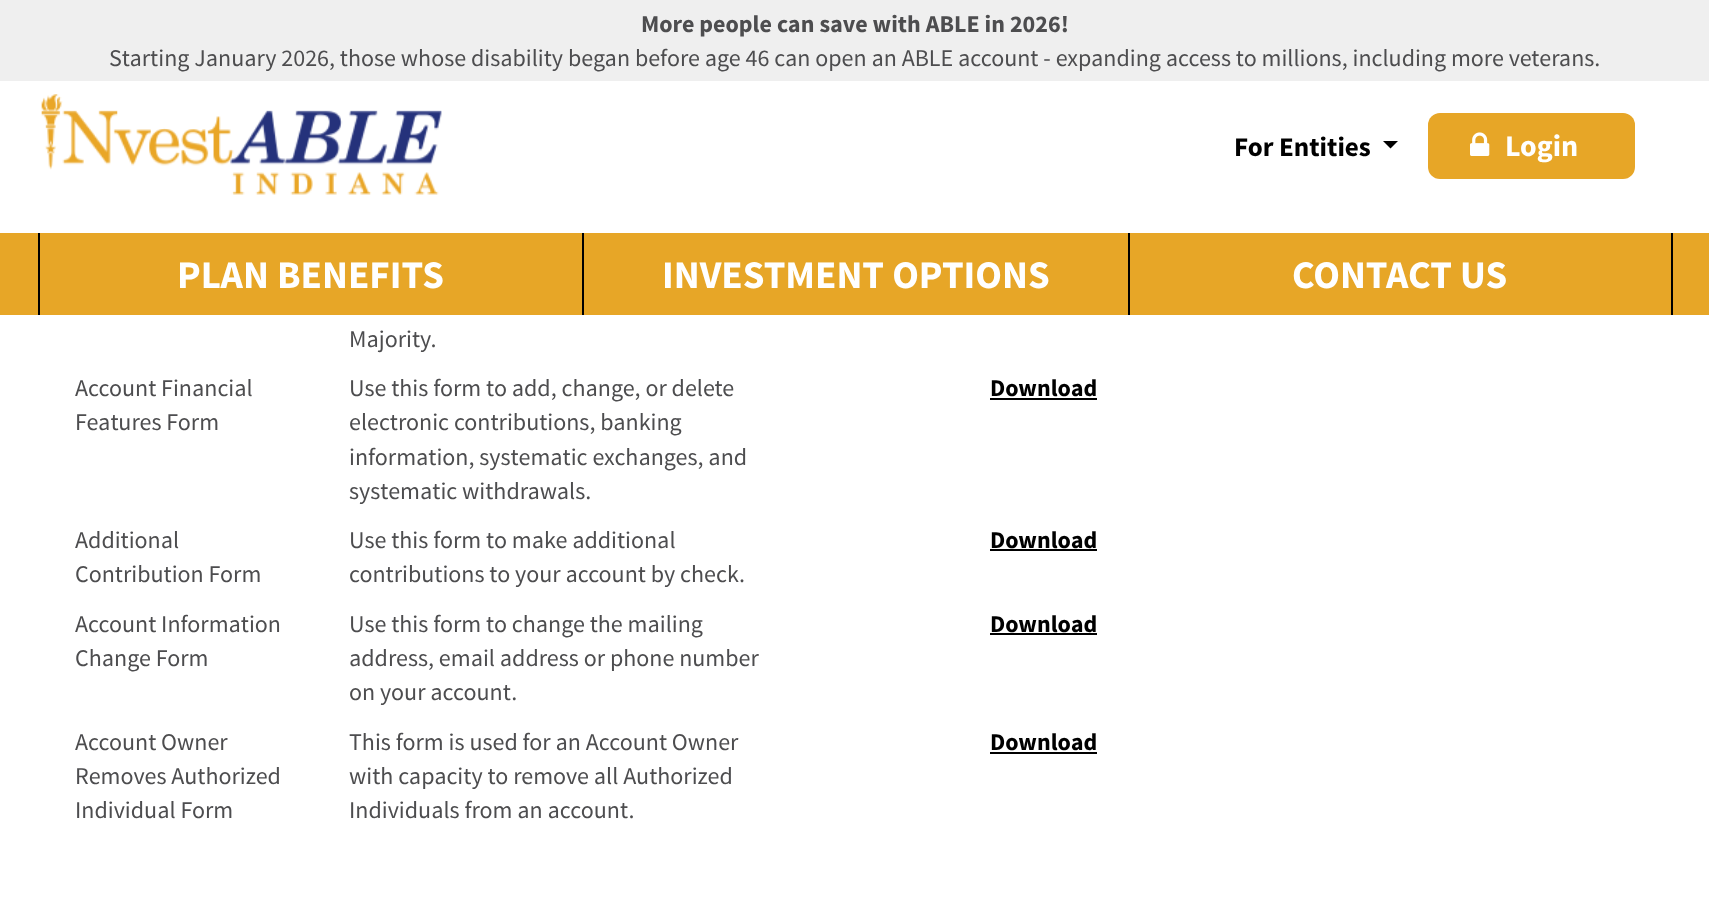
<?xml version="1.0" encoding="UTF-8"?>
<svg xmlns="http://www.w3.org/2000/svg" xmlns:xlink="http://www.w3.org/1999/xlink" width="1709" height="904">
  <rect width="100%" height="100%" fill="#ffffff" />
  <rect width="1709" height="81" fill="#efefef" />
  <image x="41" y="94" width="401" height="101" xlink:href="image1.png" />
  <path d="M 1383 141 h 15 l -7.5 7.5 z" fill="#000000" />
  <rect x="1428" y="113" width="207" height="66" rx="12" fill="#e7a627" />
  <image x="1470" y="132" width="20" height="24" xlink:href="image2.png" />
  <rect y="233" width="1709" height="82" fill="#e7a627" />
  <rect x="38" y="233" width="2" height="82" fill="#000000" />
  <rect x="582" y="233" width="2" height="82" fill="#000000" />
  <rect x="1671" y="233" width="2" height="82" fill="#000000" />
  <rect x="1128" y="233" width="2" height="82" fill="#000000" />
  <rect x="990" y="398" width="107" height="2" fill="#000000" />
  <rect x="990" y="549" width="107" height="2" fill="#000000" />
  <rect x="990" y="633" width="107" height="2" fill="#000000" />
  <rect x="990" y="752" width="107" height="2" fill="#000000" />
  <text x="641" y="32" style="font-family: Source Sans Pro; font-size: 24px; font-weight: bold; fill: #4d4d4f">More people can save with ABLE in 2026!</text>
  <text x="109" y="66" style="font-family: Source Sans Pro; font-size: 24px; fill: #4d4d4f">Starting January 2026, those whose disability began before age 46 can open an ABLE account - expanding access to millions, including more veterans.</text>
  <text x="1234" y="156" style="font-family: Source Sans Pro; font-size: 27px; font-weight: bold; fill: #000000">For Entities</text>
  <text x="1505" y="156" style="font-family: Source Sans Pro; font-size: 30px; font-weight: bold; fill: #ffffff">Login</text>
  <text x="177" y="288" style="font-family: Source Sans Pro; font-size: 39px; font-weight: bold; fill: #ffffff">PLAN BENEFITS</text>
  <text x="662" y="288" style="font-family: Source Sans Pro; font-size: 39px; font-weight: bold; fill: #ffffff">INVESTMENT OPTIONS</text>
  <text x="1292" y="288" style="font-family: Source Sans Pro; font-size: 39px; font-weight: bold; fill: #ffffff">CONTACT US</text>
  <text x="349" y="347" style="font-family: Source Sans Pro; font-size: 24px; fill: #4d4d4f">Majority.</text>
  <text x="75" y="396" style="font-family: Source Sans Pro; font-size: 24px; fill: #4d4d4f">Account Financial</text>
  <text x="75" y="430" style="font-family: Source Sans Pro; font-size: 24px; fill: #4d4d4f">Features Form</text>
  <text x="349" y="396" style="font-family: Source Sans Pro; font-size: 24px; fill: #4d4d4f">Use this form to add, change, or delete</text>
  <text x="349" y="430" style="font-family: Source Sans Pro; font-size: 24px; fill: #4d4d4f">electronic contributions, banking</text>
  <text x="349" y="465" style="font-family: Source Sans Pro; font-size: 24px; fill: #4d4d4f">information, systematic exchanges, and</text>
  <text x="349" y="499" style="font-family: Source Sans Pro; font-size: 24px; fill: #4d4d4f">systematic withdrawals.</text>
  <text x="990" y="396" style="font-family: Source Sans Pro; font-size: 24px; font-weight: bold; fill: #000000">Download</text>
  <text x="75" y="548" style="font-family: Source Sans Pro; font-size: 24px; fill: #4d4d4f">Additional</text>
  <text x="75" y="582" style="font-family: Source Sans Pro; font-size: 24px; fill: #4d4d4f">Contribution Form</text>
  <text x="349" y="548" style="font-family: Source Sans Pro; font-size: 24px; fill: #4d4d4f">Use this form to make additional</text>
  <text x="349" y="582" style="font-family: Source Sans Pro; font-size: 24px; fill: #4d4d4f">contributions to your account by check.</text>
  <text x="990" y="548" style="font-family: Source Sans Pro; font-size: 24px; font-weight: bold; fill: #000000">Download</text>
  <text x="75" y="632" style="font-family: Source Sans Pro; font-size: 24px; fill: #4d4d4f">Account Information</text>
  <text x="75" y="666" style="font-family: Source Sans Pro; font-size: 24px; fill: #4d4d4f">Change Form</text>
  <text x="349" y="632" style="font-family: Source Sans Pro; font-size: 24px; fill: #4d4d4f">Use this form to change the mailing</text>
  <text x="349" y="666" style="font-family: Source Sans Pro; font-size: 24px; fill: #4d4d4f">address, email address or phone number</text>
  <text x="349" y="700" style="font-family: Source Sans Pro; font-size: 24px; fill: #4d4d4f">on your account.</text>
  <text x="990" y="632" style="font-family: Source Sans Pro; font-size: 24px; font-weight: bold; fill: #000000">Download</text>
  <text x="75" y="750" style="font-family: Source Sans Pro; font-size: 24px; fill: #4d4d4f">Account Owner</text>
  <text x="75" y="784" style="font-family: Source Sans Pro; font-size: 24px; fill: #4d4d4f">Removes Authorized</text>
  <text x="75" y="818" style="font-family: Source Sans Pro; font-size: 24px; fill: #4d4d4f">Individual Form</text>
  <text x="349" y="750" style="font-family: Source Sans Pro; font-size: 24px; fill: #4d4d4f">This form is used for an Account Owner</text>
  <text x="349" y="784" style="font-family: Source Sans Pro; font-size: 24px; fill: #4d4d4f">with capacity to remove all Authorized</text>
  <text x="349" y="818" style="font-family: Source Sans Pro; font-size: 24px; fill: #4d4d4f">Individuals from an account.</text>
  <text x="990" y="750" style="font-family: Source Sans Pro; font-size: 24px; font-weight: bold; fill: #000000">Download</text>
</svg>
